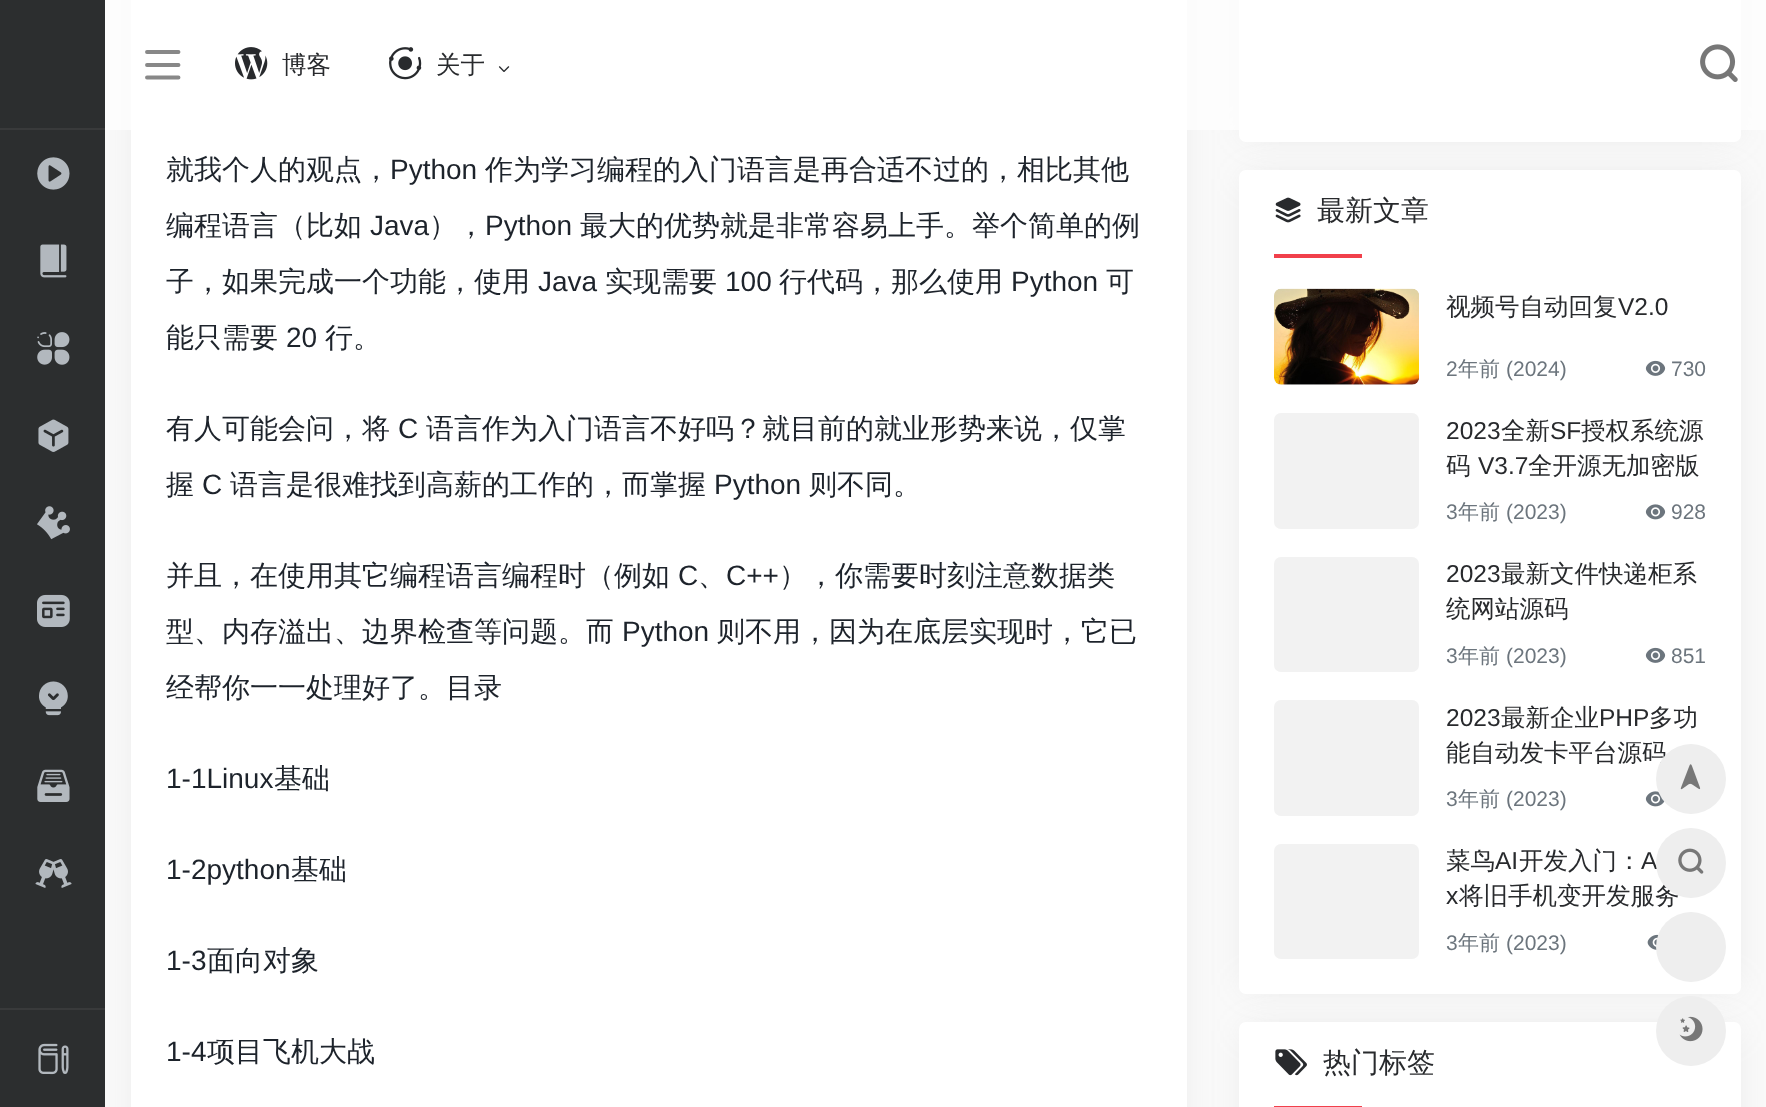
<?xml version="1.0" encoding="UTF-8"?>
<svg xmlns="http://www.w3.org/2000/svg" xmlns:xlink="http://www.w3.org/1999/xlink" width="1766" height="1107">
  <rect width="100%" height="100%" fill="#f9f9f9" />
  <rect x="140" y="-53" width="1038" height="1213" fill="#9e9e9e" fill-opacity="0.2" filter="blur(17.5px)" />
  <rect width="105" height="1107" fill="#2c2e2f" />
  <rect y="128" width="105" height="2" fill="#393a3b" />
  <image x="37" y="157" width="33" height="33" xlink:href="image1.png" />
  <image x="40" y="244" width="27" height="34" xlink:href="image2.png" />
  <image x="37" y="332" width="33" height="33" xlink:href="image3.png" />
  <image x="38" y="419" width="31" height="33" xlink:href="image4.png" />
  <image x="37" y="506" width="33" height="34" xlink:href="image5.png" />
  <image x="37" y="594" width="33" height="33" xlink:href="image6.png" />
  <image x="39" y="681" width="29" height="35" xlink:href="image7.png" />
  <image x="37" y="769" width="33" height="33" xlink:href="image8.png" />
  <image x="35" y="859" width="37" height="29" xlink:href="image9.png" />
  <rect y="1008" width="105" height="2" fill="#393a3b" />
  <image x="38" y="1043" width="31" height="32" xlink:href="image10.png" />
  <rect x="131" width="1056" height="1107" fill="#ffffff" />
  <rect x="1248" y="-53" width="485" height="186" fill="#9e9e9e" fill-opacity="0.2" filter="blur(17.5px)" />
  <rect x="1239" y="-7" width="502" height="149" rx="7" fill="#ffffff" />
  <rect x="1248" y="179" width="485" height="806" fill="#9e9e9e" fill-opacity="0.2" filter="blur(17.5px)" />
  <rect x="105" width="1661" height="130" fill="#ffffff" fill-opacity="0.7" />
  <path d="M 147 52 h 31.5 m -31.5 13 h 31.5 m -31.5 12.5 h 31.5" fill="none" stroke="#888888" stroke-width="3.9" stroke-linecap="round" stroke-linejoin="round" />
  <image x="235" y="47" width="33" height="33" xlink:href="image11.png" />
  <image x="389" y="47" width="33" height="33" xlink:href="image12.png" />
  <image x="498" y="66" width="12" height="6" xlink:href="image13.png" />
  <image x="1700" y="44" width="38" height="38" xlink:href="image14.png" />
  <rect x="1239" y="170" width="502" height="824" rx="7" fill="#ffffff" />
  <image x="1275" y="197" width="26" height="26" xlink:href="image15.png" />
  <rect x="1274" y="254" width="88" height="4" fill="#f1404b" />
  <rect x="1274" y="289" width="145" height="96" rx="7" fill="#f2f2f2" />
  <image x="1274" y="288" width="145" height="97" xlink:href="image16.png" />
  <image x="1645" y="360" width="21" height="16" xlink:href="image17.png" />
  <rect x="1274" y="413" width="145" height="116" rx="7" fill="#f2f2f2" />
  <image x="1645" y="504" width="21" height="16" xlink:href="image18.png" />
  <rect x="1274" y="557" width="145" height="115" rx="7" fill="#f2f2f2" />
  <image x="1645" y="647" width="21" height="16" xlink:href="image17.png" />
  <rect x="1274" y="700" width="145" height="116" rx="7" fill="#f2f2f2" />
  <image x="1645" y="791" width="20" height="16" xlink:href="image19.png" />
  <rect x="1274" y="844" width="145" height="115" rx="7" fill="#f2f2f2" />
  <image x="1647" y="934" width="12" height="16" xlink:href="image20.png" />
  <rect x="1248" y="1031" width="485" height="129" fill="#9e9e9e" fill-opacity="0.2" filter="blur(17.5px)" />
  <rect x="1239" y="1022" width="502" height="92" rx="7" fill="#ffffff" />
  <image x="1275" y="1049" width="32" height="27" xlink:href="image21.png" />
  <rect x="1274" y="1106" width="88" height="1" fill="#f1404b" />
  <circle cx="1691" cy="947" r="35" fill="#eeeeee" />
  <circle cx="1691" cy="1031" r="35" fill="#eeeeee" />
  <image x="1679" y="1016" width="24" height="26" xlink:href="image24.png" />
  <text x="282" y="73" style="font-family: WenQuanYi Zen Hei; font-size: 24.5px; font-weight: 500; fill: #282a2d">博客</text>
  <text x="436" y="73" style="font-family: WenQuanYi Zen Hei; font-size: 24.5px; font-weight: 500; fill: #282a2d">关于</text>
  <text x="166" y="179" style="font-family: WenQuanYi Zen Hei; font-size: 28px; font-weight: 500; fill: #1d232b">就我个人的观点，</text>
  <text x="390" y="179" style="font-family: Liberation Sans; font-size: 28px; fill: #1d232b">Python</text>
  <text x="485" y="179" style="font-family: WenQuanYi Zen Hei; font-size: 28px; font-weight: 500; fill: #1d232b">作为学习编程的入门语言是再合适不过的，相比其他</text>
  <text x="166" y="235" style="font-family: WenQuanYi Zen Hei; font-size: 28px; font-weight: 500; fill: #1d232b">编程语言（比如</text>
  <text x="370" y="235" style="font-family: Liberation Sans; font-size: 28px; fill: #1d232b">Java</text>
  <text x="429" y="235" style="font-family: WenQuanYi Zen Hei; font-size: 28px; font-weight: 500; fill: #1d232b">），</text>
  <text x="485" y="235" style="font-family: Liberation Sans; font-size: 28px; fill: #1d232b">Python</text>
  <text x="580" y="235" style="font-family: WenQuanYi Zen Hei; font-size: 28px; font-weight: 500; fill: #1d232b">最大的优势就是非常容易上手。举个简单的例</text>
  <text x="166" y="291" style="font-family: WenQuanYi Zen Hei; font-size: 28px; font-weight: 500; fill: #1d232b">子，如果完成一个功能，使用</text>
  <text x="538" y="291" style="font-family: Liberation Sans; font-size: 28px; fill: #1d232b">Java</text>
  <text x="605" y="291" style="font-family: WenQuanYi Zen Hei; font-size: 28px; font-weight: 500; fill: #1d232b">实现需要</text>
  <text x="725" y="291" style="font-family: Liberation Sans; font-size: 28px; fill: #1d232b">100</text>
  <text x="779" y="291" style="font-family: WenQuanYi Zen Hei; font-size: 28px; font-weight: 500; fill: #1d232b">行代码，那么使用</text>
  <text x="1011" y="291" style="font-family: Liberation Sans; font-size: 28px; fill: #1d232b">Python</text>
  <text x="1106" y="291" style="font-family: WenQuanYi Zen Hei; font-size: 28px; font-weight: 500; fill: #1d232b">可</text>
  <text x="166" y="347" style="font-family: WenQuanYi Zen Hei; font-size: 28px; font-weight: 500; fill: #1d232b">能只需要</text>
  <text x="286" y="347" style="font-family: Liberation Sans; font-size: 28px; fill: #1d232b">20</text>
  <text x="325" y="347" style="font-family: WenQuanYi Zen Hei; font-size: 28px; font-weight: 500; fill: #1d232b">行。</text>
  <text x="166" y="438" style="font-family: WenQuanYi Zen Hei; font-size: 28px; font-weight: 500; fill: #1d232b">有人可能会问，将</text>
  <text x="398" y="438" style="font-family: Liberation Sans; font-size: 28px; fill: #1d232b">C</text>
  <text x="426" y="438" style="font-family: WenQuanYi Zen Hei; font-size: 28px; font-weight: 500; fill: #1d232b">语言作为入门语言不好吗？就目前的就业形势来说，仅掌</text>
  <text x="166" y="494" style="font-family: WenQuanYi Zen Hei; font-size: 28px; font-weight: 500; fill: #1d232b">握</text>
  <text x="202" y="494" style="font-family: Liberation Sans; font-size: 28px; fill: #1d232b">C</text>
  <text x="230" y="494" style="font-family: WenQuanYi Zen Hei; font-size: 28px; font-weight: 500; fill: #1d232b">语言是很难找到高薪的工作的，而掌握</text>
  <text x="714" y="494" style="font-family: Liberation Sans; font-size: 28px; fill: #1d232b">Python</text>
  <text x="809" y="494" style="font-family: WenQuanYi Zen Hei; font-size: 28px; font-weight: 500; fill: #1d232b">则不同。</text>
  <text x="166" y="585" style="font-family: WenQuanYi Zen Hei; font-size: 28px; font-weight: 500; fill: #1d232b">并且，在使用其它编程语言编程时（例如</text>
  <text x="678" y="585" style="font-family: Liberation Sans; font-size: 28px; fill: #1d232b">C</text>
  <text x="698" y="585" style="font-family: WenQuanYi Zen Hei; font-size: 28px; font-weight: 500; fill: #1d232b">、</text>
  <text x="726" y="585" style="font-family: Liberation Sans; font-size: 28px; fill: #1d232b">C++</text>
  <text x="779" y="585" style="font-family: WenQuanYi Zen Hei; font-size: 28px; font-weight: 500; fill: #1d232b">），你需要时刻注意数据类</text>
  <text x="166" y="641" style="font-family: WenQuanYi Zen Hei; font-size: 28px; font-weight: 500; fill: #1d232b">型、内存溢出、边界检查等问题。而</text>
  <text x="622" y="641" style="font-family: Liberation Sans; font-size: 28px; fill: #1d232b">Python</text>
  <text x="717" y="641" style="font-family: WenQuanYi Zen Hei; font-size: 28px; font-weight: 500; fill: #1d232b">则不用，因为在底层实现时，它已</text>
  <text x="166" y="697" style="font-family: WenQuanYi Zen Hei; font-size: 28px; font-weight: 500; fill: #1d232b">经帮你一一处理好了。目录</text>
  <text x="166" y="788" style="font-family: Liberation Sans; font-size: 28px; fill: #1d232b">1-1Linux</text>
  <text x="274" y="788" style="font-family: WenQuanYi Zen Hei; font-size: 28px; font-weight: 500; fill: #1d232b">基础</text>
  <text x="166" y="879" style="font-family: Liberation Sans; font-size: 28px; fill: #1d232b">1-2python</text>
  <text x="291" y="879" style="font-family: WenQuanYi Zen Hei; font-size: 28px; font-weight: 500; fill: #1d232b">基础</text>
  <text x="166" y="970" style="font-family: Liberation Sans; font-size: 28px; fill: #1d232b">1-3</text>
  <text x="207" y="970" style="font-family: WenQuanYi Zen Hei; font-size: 28px; font-weight: 500; fill: #1d232b">面向对象</text>
  <text x="166" y="1061" style="font-family: Liberation Sans; font-size: 28px; fill: #1d232b">1-4</text>
  <text x="207" y="1061" style="font-family: WenQuanYi Zen Hei; font-size: 28px; font-weight: 500; fill: #1d232b">项目飞机大战</text>
  <text x="1317" y="220" style="font-family: WenQuanYi Zen Hei; font-size: 28px; font-weight: 500; fill: #282a2d">最新文章</text>
  <text x="1446" y="315" style="font-family: WenQuanYi Zen Hei; font-size: 24.5px; font-weight: 500; fill: #282a2d">视频号自动回复</text>
  <text x="1618" y="315" style="font-family: Liberation Sans; font-size: 24.5px; fill: #282a2d">V2.0</text>
  <text x="1446" y="376" style="font-family: Liberation Sans; font-size: 21px; fill: #6c757d">2</text>
  <text x="1458" y="376" style="font-family: WenQuanYi Zen Hei; font-size: 21px; font-weight: 500; fill: #6c757d">年前</text>
  <text x="1506" y="376" style="font-family: Liberation Sans; font-size: 21px; fill: #6c757d">(2024)</text>
  <text x="1671" y="376" style="font-family: Liberation Sans; font-size: 21px; fill: #6c757d">730</text>
  <text x="1446" y="439" style="font-family: Liberation Sans; font-size: 24.5px; fill: #282a2d">2023</text>
  <text x="1501" y="439" style="font-family: WenQuanYi Zen Hei; font-size: 24.5px; font-weight: 500; fill: #282a2d">全新</text>
  <text x="1550" y="439" style="font-family: Liberation Sans; font-size: 24.5px; fill: #282a2d">SF</text>
  <text x="1581" y="439" style="font-family: WenQuanYi Zen Hei; font-size: 24.5px; font-weight: 500; fill: #282a2d">授权系统源</text>
  <text x="1446" y="474" style="font-family: WenQuanYi Zen Hei; font-size: 24.5px; font-weight: 500; fill: #282a2d">码</text>
  <text x="1478" y="474" style="font-family: Liberation Sans; font-size: 24.5px; fill: #282a2d">V3.7</text>
  <text x="1528" y="474" style="font-family: WenQuanYi Zen Hei; font-size: 24.5px; font-weight: 500; fill: #282a2d">全开源无加密版</text>
  <text x="1446" y="519" style="font-family: Liberation Sans; font-size: 21px; fill: #6c757d">3</text>
  <text x="1458" y="519" style="font-family: WenQuanYi Zen Hei; font-size: 21px; font-weight: 500; fill: #6c757d">年前</text>
  <text x="1506" y="519" style="font-family: Liberation Sans; font-size: 21px; fill: #6c757d">(2023)</text>
  <text x="1671" y="519" style="font-family: Liberation Sans; font-size: 21px; fill: #6c757d">928</text>
  <text x="1446" y="582" style="font-family: Liberation Sans; font-size: 24.5px; fill: #282a2d">2023</text>
  <text x="1501" y="582" style="font-family: WenQuanYi Zen Hei; font-size: 24.5px; font-weight: 500; fill: #282a2d">最新文件快递柜系</text>
  <text x="1446" y="617" style="font-family: WenQuanYi Zen Hei; font-size: 24.5px; font-weight: 500; fill: #282a2d">统网站源码</text>
  <text x="1446" y="663" style="font-family: Liberation Sans; font-size: 21px; fill: #6c757d">3</text>
  <text x="1458" y="663" style="font-family: WenQuanYi Zen Hei; font-size: 21px; font-weight: 500; fill: #6c757d">年前</text>
  <text x="1506" y="663" style="font-family: Liberation Sans; font-size: 21px; fill: #6c757d">(2023)</text>
  <text x="1671" y="663" style="font-family: Liberation Sans; font-size: 21px; fill: #6c757d">851</text>
  <text x="1446" y="726" style="font-family: Liberation Sans; font-size: 24.5px; fill: #282a2d">2023</text>
  <text x="1501" y="726" style="font-family: WenQuanYi Zen Hei; font-size: 24.5px; font-weight: 500; fill: #282a2d">最新企业</text>
  <text x="1599" y="726" style="font-family: Liberation Sans; font-size: 24.5px; fill: #282a2d">PHP</text>
  <text x="1649" y="726" style="font-family: WenQuanYi Zen Hei; font-size: 24.5px; font-weight: 500; fill: #282a2d">多功</text>
  <text x="1446" y="761" style="font-family: WenQuanYi Zen Hei; font-size: 24.5px; font-weight: 500; fill: #282a2d">能自动发卡平台源码</text>
  <text x="1446" y="806" style="font-family: Liberation Sans; font-size: 21px; fill: #6c757d">3</text>
  <text x="1458" y="806" style="font-family: WenQuanYi Zen Hei; font-size: 21px; font-weight: 500; fill: #6c757d">年前</text>
  <text x="1506" y="806" style="font-family: Liberation Sans; font-size: 21px; fill: #6c757d">(2023)</text>
  <text x="1446" y="869" style="font-family: WenQuanYi Zen Hei; font-size: 24.5px; font-weight: 500; fill: #282a2d">菜鸟</text>
  <text x="1495" y="869" style="font-family: Liberation Sans; font-size: 24.5px; fill: #282a2d">AI</text>
  <text x="1519" y="869" style="font-family: WenQuanYi Zen Hei; font-size: 24.5px; font-weight: 500; fill: #282a2d">开发入门：</text>
  <text x="1641" y="869" style="font-family: Liberation Sans; font-size: 24.5px; fill: #282a2d">A</text>
  <text x="1446" y="904" style="font-family: Liberation Sans; font-size: 24.5px; fill: #282a2d">x</text>
  <text x="1459" y="904" style="font-family: WenQuanYi Zen Hei; font-size: 24.5px; font-weight: 500; fill: #282a2d">将旧手机变开发服务</text>
  <text x="1446" y="950" style="font-family: Liberation Sans; font-size: 21px; fill: #6c757d">3</text>
  <text x="1458" y="950" style="font-family: WenQuanYi Zen Hei; font-size: 21px; font-weight: 500; fill: #6c757d">年前</text>
  <text x="1506" y="950" style="font-family: Liberation Sans; font-size: 21px; fill: #6c757d">(2023)</text>
  <text x="1323" y="1072" style="font-family: WenQuanYi Zen Hei; font-size: 28px; font-weight: 500; fill: #282a2d">热门标签</text>
  <circle cx="1691" cy="779" r="35" fill="#eeeeee" />
  <image x="1680" y="764" width="21" height="26" xlink:href="image22.png" />
  <circle cx="1691" cy="863" r="35" fill="#eeeeee" />
  <image x="1678" y="848" width="26" height="26" xlink:href="image23.png" />
</svg>
